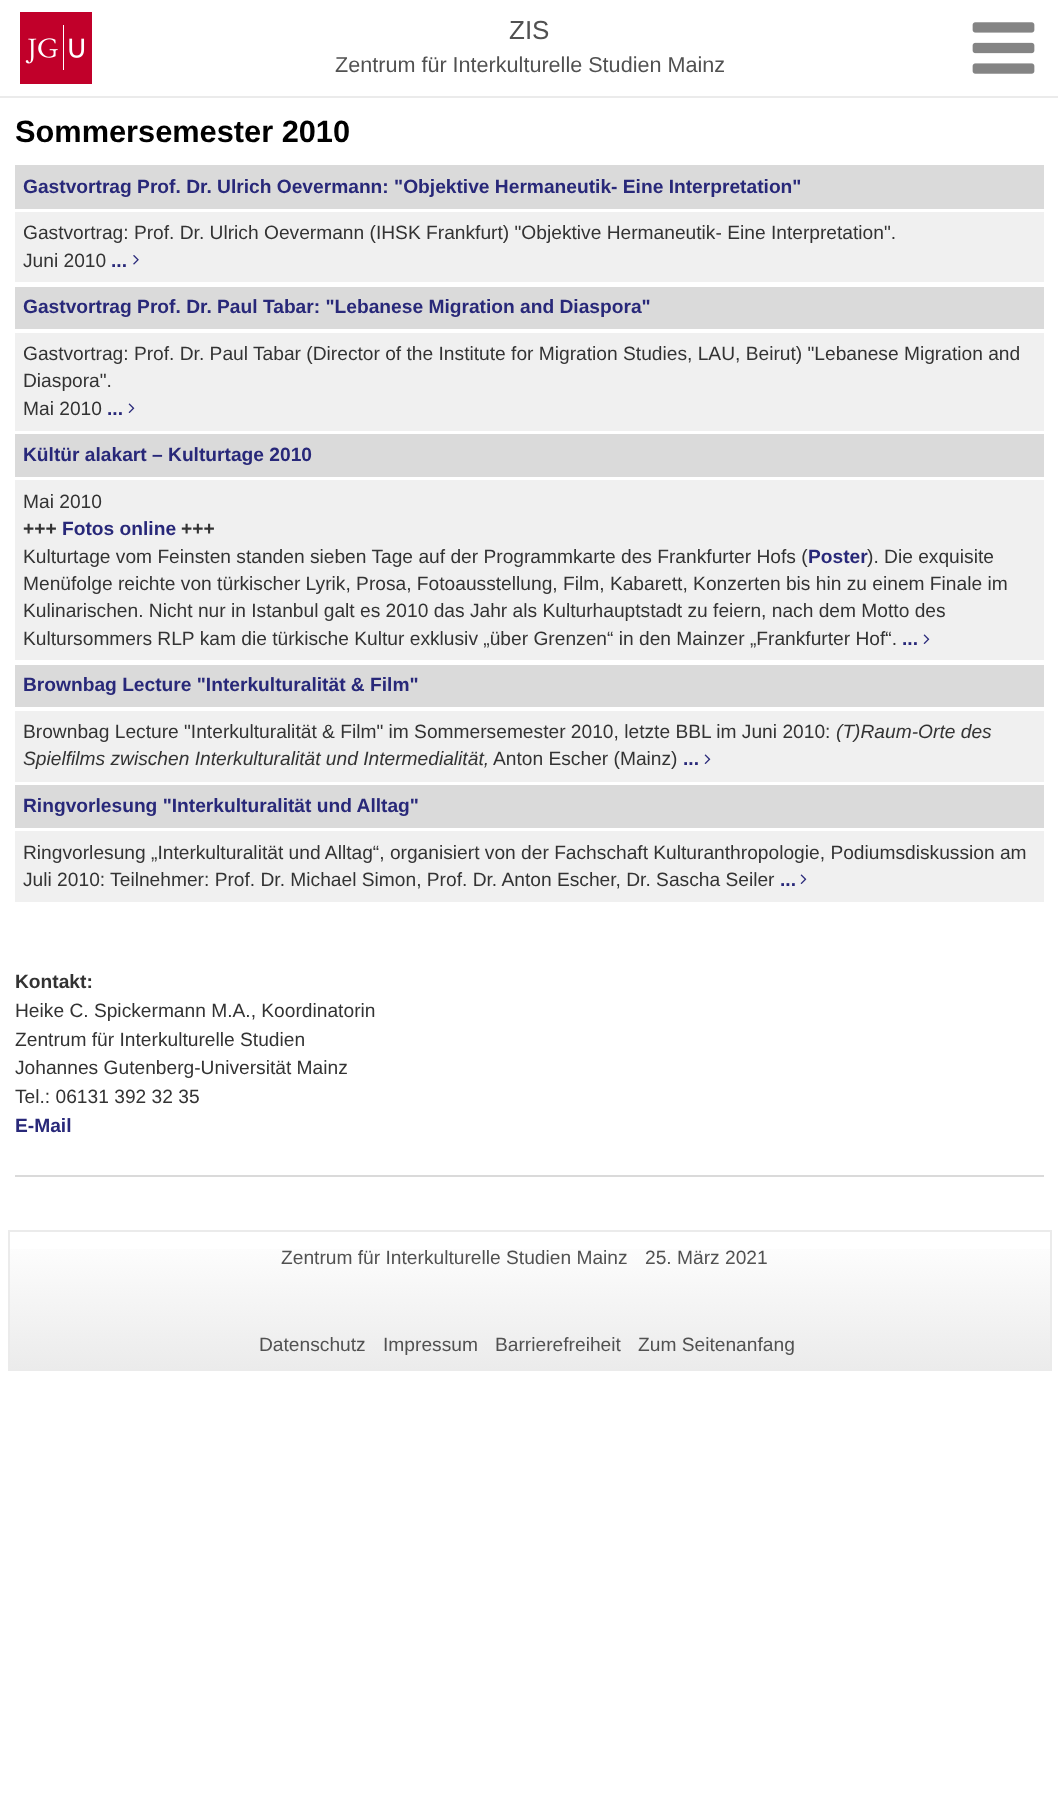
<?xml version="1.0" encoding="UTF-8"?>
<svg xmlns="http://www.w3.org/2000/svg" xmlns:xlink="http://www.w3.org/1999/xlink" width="1058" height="1812">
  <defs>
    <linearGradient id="g1" gradientUnits="userSpaceOnUse" x1="530" y1="1370" x2="530" y2="1232"><stop offset="0" stop-color="#ebebeb" /><stop offset="1" stop-color="#ffffff" /></linearGradient>
  </defs>
  <rect width="100%" height="100%" fill="#ffffff" />
  <rect y="96" width="1058" height="2" fill="#ebebeb" />
  <image x="20" y="12" width="72" height="72" xlink:href="image1.png" />
  <image x="972" y="22" width="63" height="52" xlink:href="image2.png" />
  <rect x="15" y="165" width="1029" height="44" fill="#dadada" />
  <rect x="15" y="212" width="1029" height="70" fill="#f0f0f0" />
  <image x="133" y="255" width="6" height="10" xlink:href="image3.png" />
  <rect x="15" y="287" width="1029" height="42" fill="#dadada" />
  <rect x="15" y="333" width="1029" height="98" fill="#f0f0f0" />
  <image x="128" y="403" width="7" height="10" xlink:href="image4.png" />
  <rect x="15" y="434" width="1029" height="43" fill="#dadada" />
  <rect x="15" y="480" width="1029" height="180" fill="#f0f0f0" />
  <image x="923" y="634" width="7" height="10" xlink:href="image4.png" />
  <rect x="15" y="665" width="1029" height="42" fill="#dadada" />
  <rect x="15" y="711" width="1029" height="71" fill="#f0f0f0" />
  <image x="704" y="754" width="7" height="10" xlink:href="image4.png" />
  <rect x="15" y="785" width="1029" height="43" fill="#dadada" />
  <rect x="15" y="831" width="1029" height="71" fill="#f0f0f0" />
  <image x="800" y="874" width="7" height="10" xlink:href="image4.png" />
  <rect x="15" y="1175" width="1029" height="2" fill="#dadada" />
  <rect x="10" y="1249" width="1040" height="120" fill="url(#g1)" />
  <rect x="9" y="1231" width="1042" height="139" fill="none" stroke="#ebebeb" stroke-width="2" />
  <text x="509" y="39" style="font-family: Liberation Sans; font-size: 26px; fill: #515151">ZIS</text>
  <text x="335" y="72" style="font-family: Liberation Sans; font-size: 21.6px; fill: #515151">Zentrum für Interkulturelle Studien Mainz</text>
  <text x="15" y="142" style="font-family: Liberation Sans; font-size: 30.75px; font-weight: bold; fill: #000000">Sommersemester 2010</text>
  <text x="23" y="193" style="font-family: Liberation Sans; font-size: 19.2px; font-weight: bold; fill: #282879">Gastvortrag Prof. Dr. Ulrich Oevermann: "Objektive Hermaneutik- Eine Interpretation"</text>
  <text x="23" y="239" style="font-family: Liberation Sans; font-size: 19.2px; fill: #333333">Gastvortrag: Prof. Dr. Ulrich Oevermann (IHSK Frankfurt) "Objektive Hermaneutik- Eine Interpretation".</text>
  <text x="23" y="267" style="font-family: Liberation Sans; font-size: 19.2px; fill: #333333">Juni 2010</text>
  <text x="111" y="267" style="font-family: Liberation Sans; font-size: 19.2px; font-weight: bold; fill: #282879">...</text>
  <text x="23" y="313" style="font-family: Liberation Sans; font-size: 19.2px; font-weight: bold; fill: #282879">Gastvortrag Prof. Dr. Paul Tabar: "Lebanese Migration and Diaspora"</text>
  <text x="23" y="360" style="font-family: Liberation Sans; font-size: 19.2px; fill: #333333">Gastvortrag: Prof. Dr. Paul Tabar (Director of the Institute for Migration Studies, LAU, Beirut) "Lebanese Migration and</text>
  <text x="23" y="387" style="font-family: Liberation Sans; font-size: 19.2px; fill: #333333">Diaspora".</text>
  <text x="23" y="415" style="font-family: Liberation Sans; font-size: 19.2px; fill: #333333">Mai 2010</text>
  <text x="107" y="415" style="font-family: Liberation Sans; font-size: 19.2px; font-weight: bold; fill: #282879">...</text>
  <text x="23" y="461" style="font-family: Liberation Sans; font-size: 19.2px; font-weight: bold; fill: #282879">Kültür alakart – Kulturtage 2010</text>
  <text x="23" y="508" style="font-family: Liberation Sans; font-size: 19.2px; fill: #333333">Mai 2010</text>
  <text x="23" y="535" style="font-family: Liberation Sans; font-size: 19.2px; font-weight: bold; fill: #333333">+++</text>
  <text x="62" y="535" style="font-family: Liberation Sans; font-size: 19.2px; font-weight: bold; fill: #282879">Fotos online</text>
  <text x="181" y="535" style="font-family: Liberation Sans; font-size: 19.2px; font-weight: bold; fill: #333333">+++</text>
  <text x="23" y="563" style="font-family: Liberation Sans; font-size: 19.2px; fill: #333333">Kulturtage vom Feinsten standen sieben Tage auf der Programmkarte des Frankfurter Hofs (</text>
  <text x="808" y="563" style="font-family: Liberation Sans; font-size: 19.2px; font-weight: bold; fill: #282879">Poster</text>
  <text x="867" y="563" style="font-family: Liberation Sans; font-size: 19.2px; fill: #333333">). Die exquisite</text>
  <text x="23" y="590" style="font-family: Liberation Sans; font-size: 19.2px; fill: #333333">Menüfolge reichte von türkischer Lyrik, Prosa, Fotoausstellung, Film, Kabarett, Konzerten bis hin zu einem Finale im</text>
  <text x="23" y="617" style="font-family: Liberation Sans; font-size: 19.2px; fill: #333333">Kulinarischen. Nicht nur in Istanbul galt es 2010 das Jahr als Kulturhauptstadt zu feiern, nach dem Motto des</text>
  <text x="23" y="645" style="font-family: Liberation Sans; font-size: 19.2px; fill: #333333">Kultursommers RLP kam die türkische Kultur exklusiv „über Grenzen“ in den Mainzer „Frankfurter Hof“.</text>
  <text x="902" y="645" style="font-family: Liberation Sans; font-size: 19.2px; font-weight: bold; fill: #282879">...</text>
  <text x="23" y="691" style="font-family: Liberation Sans; font-size: 19.2px; font-weight: bold; fill: #282879">Brownbag Lecture "Interkulturalität &amp; Film"</text>
  <text x="23" y="738" style="font-family: Liberation Sans; font-size: 19.2px; fill: #333333">Brownbag Lecture "Interkulturalität &amp; Film" im Sommersemester 2010, letzte BBL im Juni 2010:</text>
  <text x="836" y="738" style="font-family: Liberation Sans; font-size: 19.2px; font-style: italic; fill: #333333">(T)Raum-Orte des</text>
  <text x="23" y="765" style="font-family: Liberation Sans; font-size: 19.2px; font-style: italic; fill: #333333">Spielfilms zwischen Interkulturalität und Intermedialität,</text>
  <text x="493" y="765" style="font-family: Liberation Sans; font-size: 19.2px; fill: #333333">Anton Escher (Mainz)</text>
  <text x="683" y="765" style="font-family: Liberation Sans; font-size: 19.2px; font-weight: bold; fill: #282879">...</text>
  <text x="23" y="812" style="font-family: Liberation Sans; font-size: 19.2px; font-weight: bold; fill: #282879">Ringvorlesung "Interkulturalität und Alltag"</text>
  <text x="23" y="859" style="font-family: Liberation Sans; font-size: 19.2px; fill: #333333">Ringvorlesung „Interkulturalität und Alltag“, organisiert von der Fachschaft Kulturanthropologie, Podiumsdiskussion am</text>
  <text x="23" y="886" style="font-family: Liberation Sans; font-size: 19.2px; fill: #333333">Juli 2010: Teilnehmer: Prof. Dr. Michael Simon, Prof. Dr. Anton Escher, Dr. Sascha Seiler</text>
  <text x="780" y="886" style="font-family: Liberation Sans; font-size: 19.2px; font-weight: bold; fill: #282879">...</text>
  <text x="15" y="988" style="font-family: Liberation Sans; font-size: 19.2px; font-weight: bold; fill: #333333">Kontakt:</text>
  <text x="15" y="1017" style="font-family: Liberation Sans; font-size: 19.2px; fill: #333333">Heike C. Spickermann M.A., Koordinatorin</text>
  <text x="15" y="1046" style="font-family: Liberation Sans; font-size: 19.2px; fill: #333333">Zentrum für Interkulturelle Studien</text>
  <text x="15" y="1074" style="font-family: Liberation Sans; font-size: 19.2px; fill: #333333">Johannes Gutenberg-Universität Mainz</text>
  <text x="15" y="1103" style="font-family: Liberation Sans; font-size: 19.2px; fill: #333333">Tel.: 06131 392 32 35</text>
  <text x="15" y="1132" style="font-family: Liberation Sans; font-size: 19.2px; font-weight: bold; fill: #282879">E-Mail</text>
  <text x="281" y="1264" style="font-family: Liberation Sans; font-size: 19.2px; fill: #515151">Zentrum für Interkulturelle Studien Mainz</text>
  <text x="645" y="1264" style="font-family: Liberation Sans; font-size: 19.2px; fill: #515151">25. März 2021</text>
  <text x="259" y="1351" style="font-family: Liberation Sans; font-size: 19.2px; fill: #515151">Datenschutz</text>
  <text x="383" y="1351" style="font-family: Liberation Sans; font-size: 19.2px; fill: #515151">Impressum</text>
  <text x="495" y="1351" style="font-family: Liberation Sans; font-size: 19.2px; fill: #515151">Barrierefreiheit</text>
  <text x="638" y="1351" style="font-family: Liberation Sans; font-size: 19.2px; fill: #515151">Zum Seitenanfang</text>
</svg>
